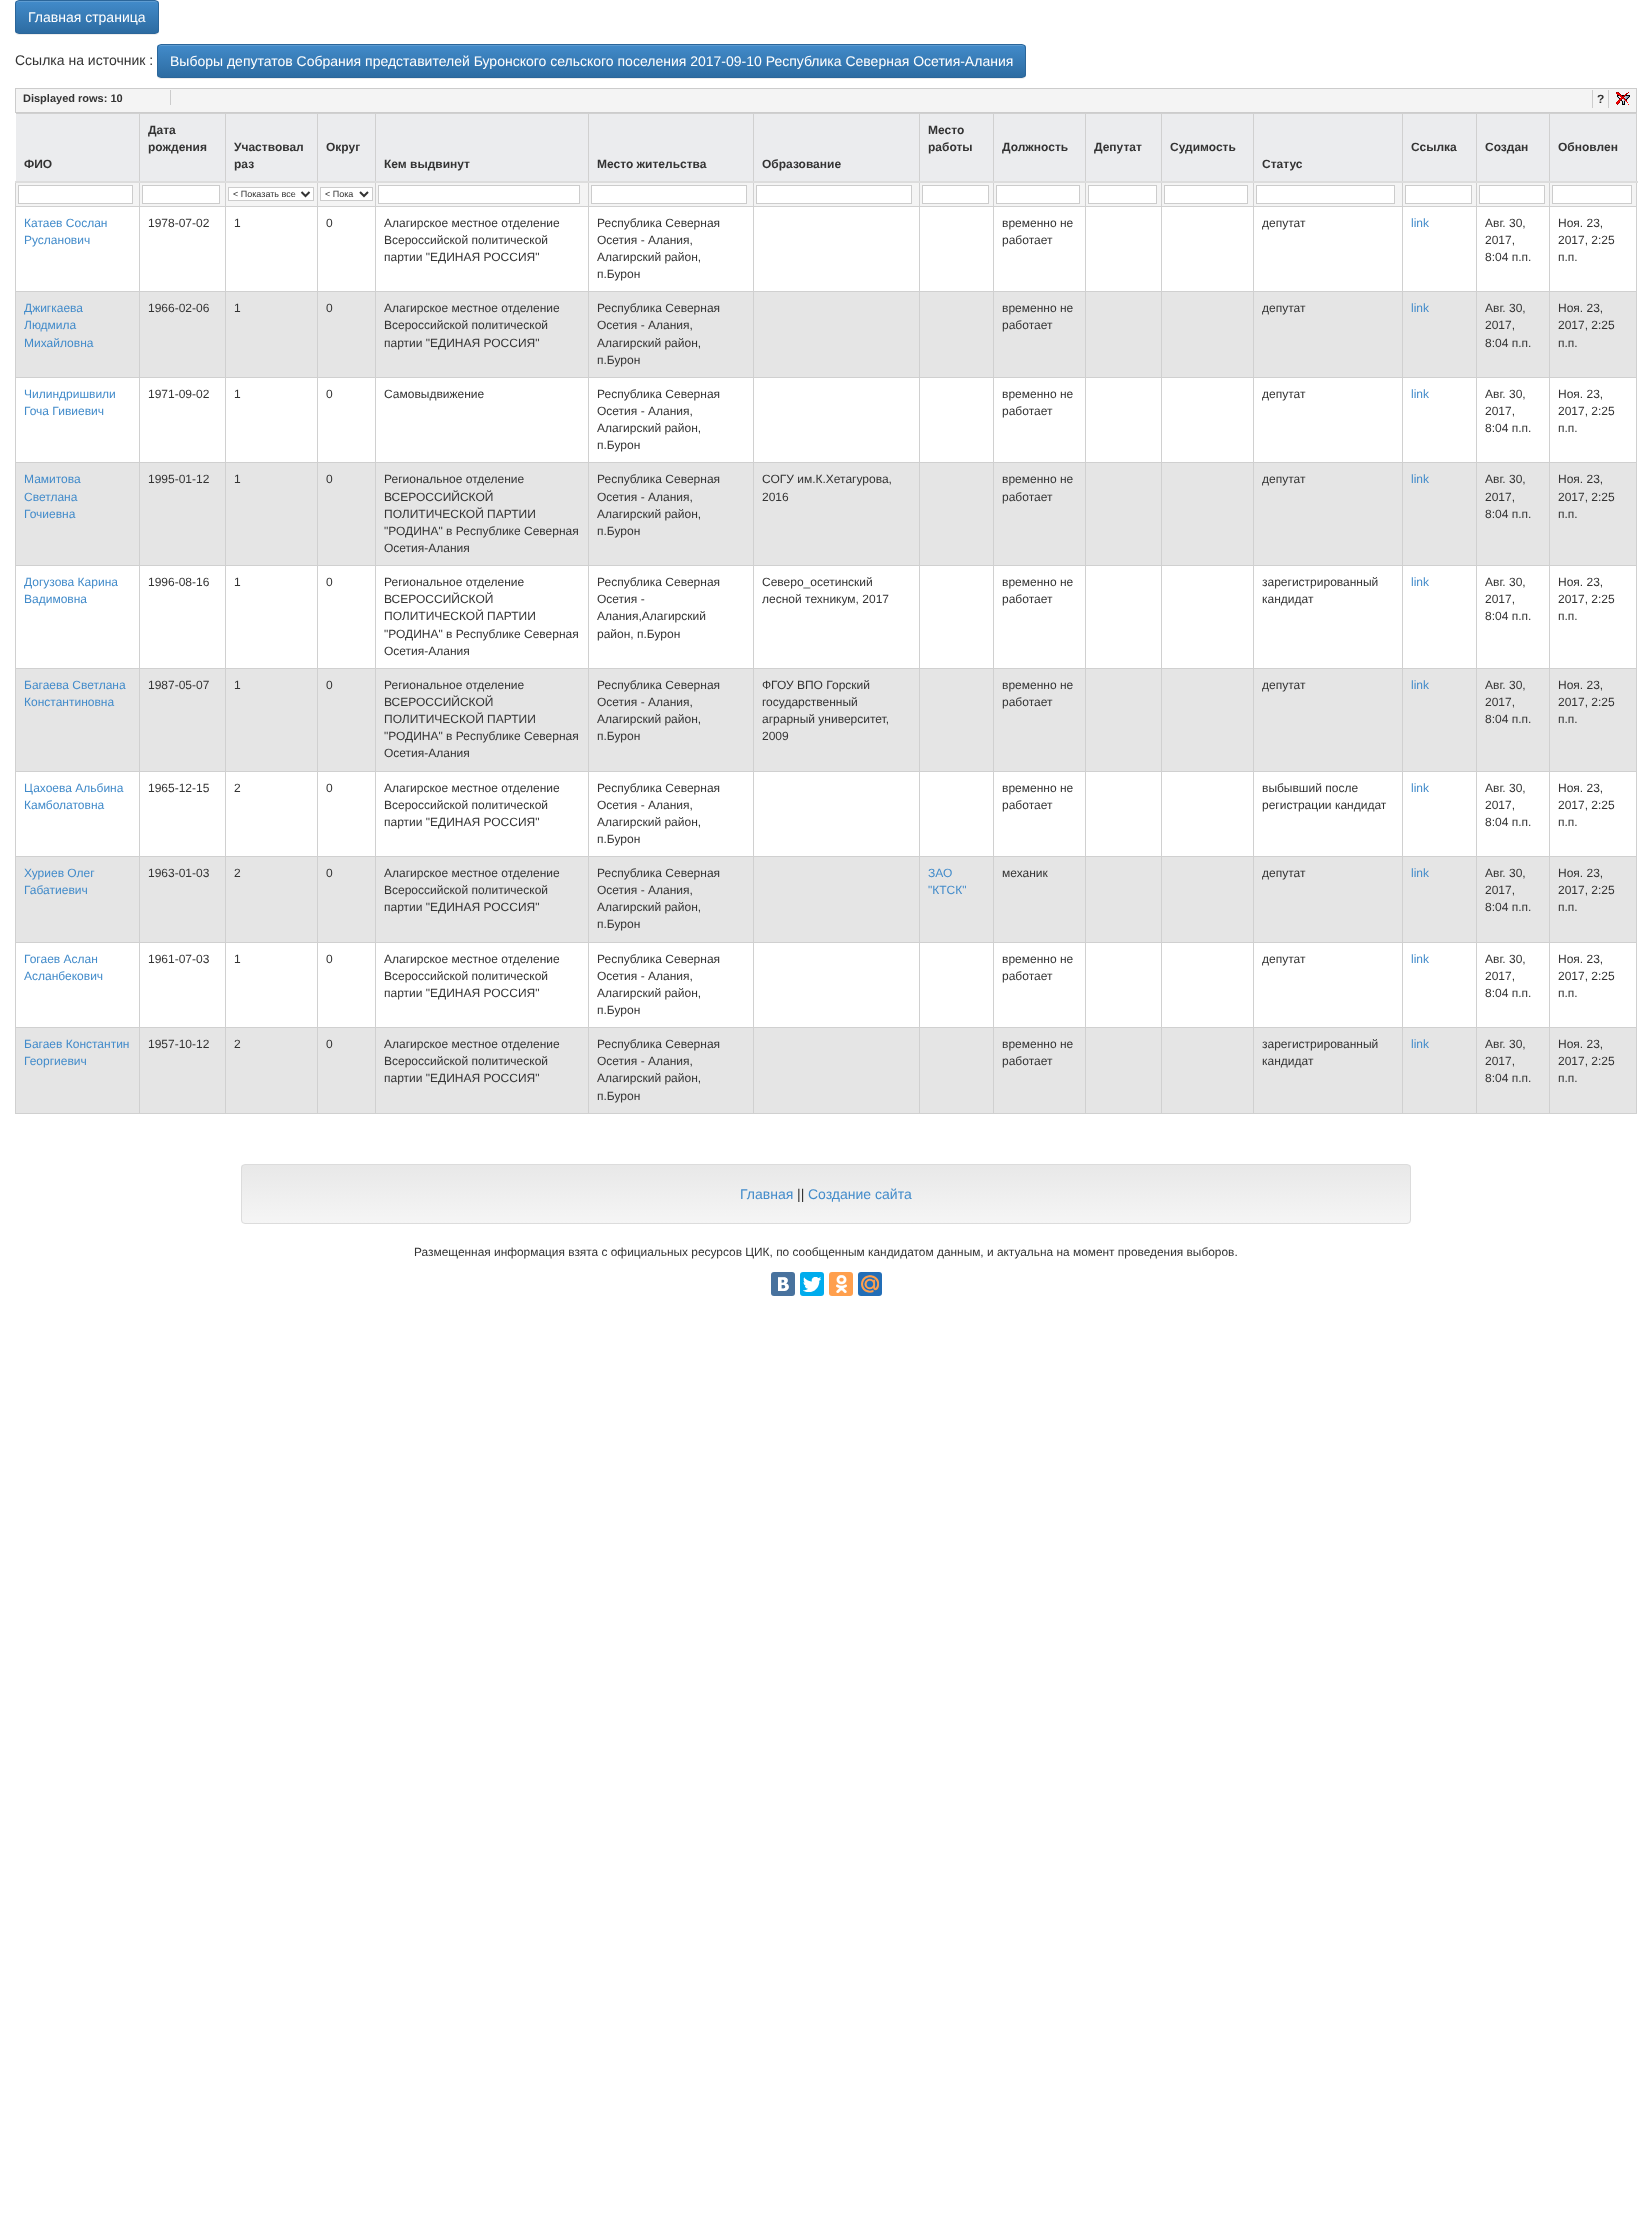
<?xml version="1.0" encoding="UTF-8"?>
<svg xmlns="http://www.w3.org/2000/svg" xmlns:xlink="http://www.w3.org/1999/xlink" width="1652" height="2237">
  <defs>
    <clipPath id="clip1"><rect x="15" width="144" height="34" rx="4" /></clipPath>
    <linearGradient id="g1" gradientUnits="userSpaceOnUse" x1="87" y1="1" x2="87" y2="33"><stop offset="0" stop-color="#428bca" /><stop offset="1" stop-color="#2d6ca2" /></linearGradient>
    <clipPath id="clip2"><rect x="157" y="44" width="869" height="34" rx="4" /></clipPath>
    <linearGradient id="g2" gradientUnits="userSpaceOnUse" x1="592" y1="45" x2="592" y2="77"><stop offset="0" stop-color="#428bca" /><stop offset="1" stop-color="#2d6ca2" /></linearGradient>
    <clipPath id="clip3"><rect x="241" y="1164" width="1170" height="60" rx="4" /></clipPath>
    <linearGradient id="g3" gradientUnits="userSpaceOnUse" x1="826" y1="1165" x2="826" y2="1223"><stop offset="0" stop-color="#e8e8e8" /><stop offset="1" stop-color="#f5f5f5" /></linearGradient>
  </defs>
  <rect width="100%" height="100%" fill="#ffffff" />
  <rect x="15" y="1" width="144" height="34" rx="4" fill="#000000" fill-opacity="0.07" filter="blur(0.5px)" />
  <g clip-path="url(#clip1)">
    <rect x="15" y="1" width="144" height="32" fill="url(#g1)" />
  </g>
  <path d="M 19 2 h 136 c 2 0 3 1 3 3 v -1 c 0 -2 -1 -3 -3 -3 h -136 c -2 0 -3 1 -3 3 v 1 c 0 -2 1 -3 3 -3 z" fill="#5e9cd1" />
  <rect x="15.5" y="0.5" width="143" height="33" rx="3.5" fill="none" stroke="#2b669a" />
  <rect x="157" y="45" width="869" height="34" rx="4" fill="#000000" fill-opacity="0.07" filter="blur(0.5px)" />
  <g clip-path="url(#clip2)">
    <rect x="157" y="45" width="869" height="32" fill="url(#g2)" />
  </g>
  <path d="M 161 46 h 861 c 2 0 3 1 3 3 c 0 -2 -1 -4 -3 -4 h -861 c -2 0 -3 2 -3 4 c 0 -2 1 -3 3 -3 z" fill="#5e9cd1" />
  <rect x="157.5" y="44.5" width="868" height="33" rx="3.5" fill="none" stroke="#2b669a" />
  <rect x="15.5" y="88.5" width="1621" height="24" fill="#f4f4f4" stroke="#cccccc" />
  <rect x="170" y="90" width="1" height="15" fill="#cccccc" />
  <rect x="1608" y="90" width="1" height="18" fill="#cccccc" />
  <rect x="1592" y="90" width="1" height="18" fill="#cccccc" />
  <image x="1616" y="92" width="14" height="13" xlink:href="image1.png" />
  <rect x="15" y="113" width="1622" height="1" fill="#d0d0d0" />
  <rect x="15" y="183" width="1" height="931" fill="#d0d0d0" />
  <rect x="140" y="114" width="85" height="67" fill="#ebecee" />
  <rect x="226" y="114" width="91" height="67" fill="#ebecee" />
  <rect x="318" y="114" width="57" height="67" fill="#ebecee" />
  <rect x="920" y="114" width="73" height="67" fill="#ebecee" />
  <rect x="994" y="114" width="91" height="67" fill="#ebecee" />
  <rect x="1086" y="114" width="75" height="67" fill="#ebecee" />
  <rect x="1162" y="114" width="91" height="67" fill="#ebecee" />
  <rect x="1403" y="114" width="73" height="67" fill="#ebecee" />
  <rect x="1477" y="114" width="72" height="67" fill="#ebecee" />
  <rect x="1550" y="114" width="86" height="67" fill="#ebecee" />
  <rect x="16" y="183" width="1620" height="23" fill="#f4f4f4" />
  <rect x="16" y="292" width="1620" height="85" fill="#e5e5e5" />
  <rect x="1636" y="462" width="1" height="652" fill="#d0d0d0" />
  <rect x="1636" y="113" width="1" height="350" fill="#d0d0d0" />
  <rect x="16" y="463" width="1620" height="102" fill="#e5e5e5" />
  <rect x="16" y="669" width="1620" height="102" fill="#e5e5e5" />
  <rect x="16" y="857" width="1620" height="85" fill="#e5e5e5" />
  <rect x="16" y="1028" width="1620" height="85" fill="#e5e5e5" />
  <rect x="1549" y="1113" width="88" height="1" fill="#d0d0d0" />
  <rect x="1549" y="1027" width="1" height="87" fill="#d0d0d0" />
  <rect x="1549" y="1027" width="88" height="1" fill="#d0d0d0" />
  <rect x="1549" y="942" width="1" height="86" fill="#d0d0d0" />
  <rect x="1549" y="942" width="88" height="1" fill="#d0d0d0" />
  <rect x="1549" y="856" width="1" height="87" fill="#d0d0d0" />
  <rect x="1549" y="856" width="88" height="1" fill="#d0d0d0" />
  <rect x="1549" y="771" width="1" height="86" fill="#d0d0d0" />
  <rect x="1549" y="771" width="88" height="1" fill="#d0d0d0" />
  <rect x="1549" y="668" width="1" height="104" fill="#d0d0d0" />
  <rect x="1549" y="668" width="88" height="1" fill="#d0d0d0" />
  <rect x="1549" y="565" width="1" height="104" fill="#d0d0d0" />
  <rect x="1549" y="565" width="88" height="1" fill="#d0d0d0" />
  <rect x="1549" y="462" width="1" height="104" fill="#d0d0d0" />
  <rect x="1549" y="462" width="88" height="1" fill="#d0d0d0" />
  <rect x="1549" y="377" width="1" height="86" fill="#d0d0d0" />
  <rect x="1549" y="377" width="88" height="1" fill="#d0d0d0" />
  <rect x="1549" y="291" width="1" height="87" fill="#d0d0d0" />
  <rect x="1549" y="291" width="88" height="1" fill="#d0d0d0" />
  <rect x="1549" y="206" width="1" height="86" fill="#d0d0d0" />
  <rect x="1549" y="206" width="88" height="1" fill="#d0d0d0" />
  <rect x="1549" y="113" width="1" height="94" fill="#d0d0d0" />
  <rect x="1476" y="1113" width="74" height="1" fill="#d0d0d0" />
  <rect x="1476" y="1027" width="1" height="87" fill="#d0d0d0" />
  <rect x="1476" y="1027" width="74" height="1" fill="#d0d0d0" />
  <rect x="1476" y="942" width="1" height="86" fill="#d0d0d0" />
  <rect x="1476" y="942" width="74" height="1" fill="#d0d0d0" />
  <rect x="1476" y="856" width="1" height="87" fill="#d0d0d0" />
  <rect x="1476" y="856" width="74" height="1" fill="#d0d0d0" />
  <rect x="1476" y="771" width="1" height="86" fill="#d0d0d0" />
  <rect x="1476" y="771" width="74" height="1" fill="#d0d0d0" />
  <rect x="1476" y="668" width="1" height="104" fill="#d0d0d0" />
  <rect x="1476" y="668" width="74" height="1" fill="#d0d0d0" />
  <rect x="1476" y="565" width="1" height="104" fill="#d0d0d0" />
  <rect x="1476" y="565" width="74" height="1" fill="#d0d0d0" />
  <rect x="1476" y="462" width="1" height="104" fill="#d0d0d0" />
  <rect x="1476" y="462" width="74" height="1" fill="#d0d0d0" />
  <rect x="1476" y="377" width="1" height="86" fill="#d0d0d0" />
  <rect x="1476" y="377" width="74" height="1" fill="#d0d0d0" />
  <rect x="1476" y="291" width="1" height="87" fill="#d0d0d0" />
  <rect x="1476" y="291" width="74" height="1" fill="#d0d0d0" />
  <rect x="1476" y="206" width="1" height="86" fill="#d0d0d0" />
  <rect x="1476" y="206" width="74" height="1" fill="#d0d0d0" />
  <rect x="1476" y="113" width="1" height="94" fill="#d0d0d0" />
  <rect x="1402" y="1113" width="75" height="1" fill="#d0d0d0" />
  <rect x="1402" y="1027" width="1" height="87" fill="#d0d0d0" />
  <rect x="1402" y="1027" width="75" height="1" fill="#d0d0d0" />
  <rect x="1402" y="942" width="1" height="86" fill="#d0d0d0" />
  <rect x="1402" y="942" width="75" height="1" fill="#d0d0d0" />
  <rect x="1402" y="856" width="1" height="87" fill="#d0d0d0" />
  <rect x="1402" y="856" width="75" height="1" fill="#d0d0d0" />
  <rect x="1402" y="771" width="1" height="86" fill="#d0d0d0" />
  <rect x="1402" y="771" width="75" height="1" fill="#d0d0d0" />
  <rect x="1402" y="668" width="1" height="104" fill="#d0d0d0" />
  <rect x="1402" y="668" width="75" height="1" fill="#d0d0d0" />
  <rect x="1402" y="565" width="1" height="104" fill="#d0d0d0" />
  <rect x="1402" y="565" width="75" height="1" fill="#d0d0d0" />
  <rect x="1402" y="462" width="1" height="104" fill="#d0d0d0" />
  <rect x="1402" y="462" width="75" height="1" fill="#d0d0d0" />
  <rect x="1402" y="377" width="1" height="86" fill="#d0d0d0" />
  <rect x="1402" y="377" width="75" height="1" fill="#d0d0d0" />
  <rect x="1402" y="291" width="1" height="87" fill="#d0d0d0" />
  <rect x="1402" y="291" width="75" height="1" fill="#d0d0d0" />
  <rect x="1402" y="206" width="1" height="86" fill="#d0d0d0" />
  <rect x="1402" y="206" width="75" height="1" fill="#d0d0d0" />
  <rect x="1402" y="113" width="1" height="94" fill="#d0d0d0" />
  <rect x="1253" y="1113" width="150" height="1" fill="#d0d0d0" />
  <rect x="1253" y="1027" width="1" height="87" fill="#d0d0d0" />
  <rect x="1253" y="1027" width="150" height="1" fill="#d0d0d0" />
  <rect x="1253" y="942" width="1" height="86" fill="#d0d0d0" />
  <rect x="1253" y="942" width="150" height="1" fill="#d0d0d0" />
  <rect x="1253" y="856" width="1" height="87" fill="#d0d0d0" />
  <rect x="1253" y="856" width="150" height="1" fill="#d0d0d0" />
  <rect x="1253" y="771" width="1" height="86" fill="#d0d0d0" />
  <rect x="1253" y="771" width="150" height="1" fill="#d0d0d0" />
  <rect x="1253" y="668" width="1" height="104" fill="#d0d0d0" />
  <rect x="1253" y="668" width="150" height="1" fill="#d0d0d0" />
  <rect x="1253" y="565" width="1" height="104" fill="#d0d0d0" />
  <rect x="1253" y="565" width="150" height="1" fill="#d0d0d0" />
  <rect x="1253" y="462" width="1" height="104" fill="#d0d0d0" />
  <rect x="1253" y="462" width="150" height="1" fill="#d0d0d0" />
  <rect x="1253" y="377" width="1" height="86" fill="#d0d0d0" />
  <rect x="1253" y="377" width="150" height="1" fill="#d0d0d0" />
  <rect x="1253" y="291" width="1" height="87" fill="#d0d0d0" />
  <rect x="1253" y="291" width="150" height="1" fill="#d0d0d0" />
  <rect x="1253" y="206" width="1" height="86" fill="#d0d0d0" />
  <rect x="1253" y="206" width="150" height="1" fill="#d0d0d0" />
  <rect x="1253" y="113" width="1" height="94" fill="#d0d0d0" />
  <rect x="1161" y="1113" width="93" height="1" fill="#d0d0d0" />
  <rect x="1161" y="1027" width="1" height="87" fill="#d0d0d0" />
  <rect x="1161" y="1027" width="93" height="1" fill="#d0d0d0" />
  <rect x="1161" y="942" width="1" height="86" fill="#d0d0d0" />
  <rect x="1161" y="942" width="93" height="1" fill="#d0d0d0" />
  <rect x="1161" y="856" width="1" height="87" fill="#d0d0d0" />
  <rect x="1161" y="856" width="93" height="1" fill="#d0d0d0" />
  <rect x="1161" y="771" width="1" height="86" fill="#d0d0d0" />
  <rect x="1161" y="771" width="93" height="1" fill="#d0d0d0" />
  <rect x="1161" y="668" width="1" height="104" fill="#d0d0d0" />
  <rect x="1161" y="668" width="93" height="1" fill="#d0d0d0" />
  <rect x="1161" y="565" width="1" height="104" fill="#d0d0d0" />
  <rect x="1161" y="565" width="93" height="1" fill="#d0d0d0" />
  <rect x="1161" y="462" width="1" height="104" fill="#d0d0d0" />
  <rect x="1161" y="462" width="93" height="1" fill="#d0d0d0" />
  <rect x="1161" y="377" width="1" height="86" fill="#d0d0d0" />
  <rect x="1161" y="377" width="93" height="1" fill="#d0d0d0" />
  <rect x="1161" y="291" width="1" height="87" fill="#d0d0d0" />
  <rect x="1161" y="291" width="93" height="1" fill="#d0d0d0" />
  <rect x="1161" y="206" width="1" height="86" fill="#d0d0d0" />
  <rect x="1161" y="206" width="93" height="1" fill="#d0d0d0" />
  <rect x="1161" y="113" width="1" height="94" fill="#d0d0d0" />
  <rect x="1085" y="1113" width="77" height="1" fill="#d0d0d0" />
  <rect x="1085" y="1027" width="1" height="87" fill="#d0d0d0" />
  <rect x="1085" y="1027" width="77" height="1" fill="#d0d0d0" />
  <rect x="1085" y="942" width="1" height="86" fill="#d0d0d0" />
  <rect x="1085" y="942" width="77" height="1" fill="#d0d0d0" />
  <rect x="1085" y="856" width="1" height="87" fill="#d0d0d0" />
  <rect x="1085" y="856" width="77" height="1" fill="#d0d0d0" />
  <rect x="1085" y="771" width="1" height="86" fill="#d0d0d0" />
  <rect x="1085" y="771" width="77" height="1" fill="#d0d0d0" />
  <rect x="1085" y="668" width="1" height="104" fill="#d0d0d0" />
  <rect x="1085" y="668" width="77" height="1" fill="#d0d0d0" />
  <rect x="1085" y="565" width="1" height="104" fill="#d0d0d0" />
  <rect x="1085" y="565" width="77" height="1" fill="#d0d0d0" />
  <rect x="1085" y="462" width="1" height="104" fill="#d0d0d0" />
  <rect x="1085" y="462" width="77" height="1" fill="#d0d0d0" />
  <rect x="1085" y="377" width="1" height="86" fill="#d0d0d0" />
  <rect x="1085" y="377" width="77" height="1" fill="#d0d0d0" />
  <rect x="1085" y="291" width="1" height="87" fill="#d0d0d0" />
  <rect x="1085" y="291" width="77" height="1" fill="#d0d0d0" />
  <rect x="1085" y="206" width="1" height="86" fill="#d0d0d0" />
  <rect x="1085" y="206" width="77" height="1" fill="#d0d0d0" />
  <rect x="1085" y="113" width="1" height="94" fill="#d0d0d0" />
  <rect x="993" y="1113" width="93" height="1" fill="#d0d0d0" />
  <rect x="993" y="1027" width="1" height="87" fill="#d0d0d0" />
  <rect x="993" y="1027" width="93" height="1" fill="#d0d0d0" />
  <rect x="993" y="942" width="1" height="86" fill="#d0d0d0" />
  <rect x="993" y="942" width="93" height="1" fill="#d0d0d0" />
  <rect x="993" y="856" width="1" height="87" fill="#d0d0d0" />
  <rect x="993" y="856" width="93" height="1" fill="#d0d0d0" />
  <rect x="993" y="771" width="1" height="86" fill="#d0d0d0" />
  <rect x="993" y="771" width="93" height="1" fill="#d0d0d0" />
  <rect x="993" y="668" width="1" height="104" fill="#d0d0d0" />
  <rect x="993" y="668" width="93" height="1" fill="#d0d0d0" />
  <rect x="993" y="565" width="1" height="104" fill="#d0d0d0" />
  <rect x="993" y="565" width="93" height="1" fill="#d0d0d0" />
  <rect x="993" y="462" width="1" height="104" fill="#d0d0d0" />
  <rect x="993" y="462" width="93" height="1" fill="#d0d0d0" />
  <rect x="993" y="377" width="1" height="86" fill="#d0d0d0" />
  <rect x="993" y="377" width="93" height="1" fill="#d0d0d0" />
  <rect x="993" y="291" width="1" height="87" fill="#d0d0d0" />
  <rect x="993" y="291" width="93" height="1" fill="#d0d0d0" />
  <rect x="993" y="206" width="1" height="86" fill="#d0d0d0" />
  <rect x="993" y="206" width="93" height="1" fill="#d0d0d0" />
  <rect x="993" y="113" width="1" height="94" fill="#d0d0d0" />
  <rect x="919" y="1113" width="75" height="1" fill="#d0d0d0" />
  <rect x="919" y="1027" width="1" height="87" fill="#d0d0d0" />
  <rect x="919" y="1027" width="75" height="1" fill="#d0d0d0" />
  <rect x="919" y="942" width="1" height="86" fill="#d0d0d0" />
  <rect x="919" y="942" width="75" height="1" fill="#d0d0d0" />
  <rect x="919" y="856" width="1" height="87" fill="#d0d0d0" />
  <rect x="919" y="856" width="75" height="1" fill="#d0d0d0" />
  <rect x="919" y="771" width="1" height="86" fill="#d0d0d0" />
  <rect x="919" y="771" width="75" height="1" fill="#d0d0d0" />
  <rect x="919" y="668" width="1" height="104" fill="#d0d0d0" />
  <rect x="919" y="668" width="75" height="1" fill="#d0d0d0" />
  <rect x="919" y="565" width="1" height="104" fill="#d0d0d0" />
  <rect x="919" y="565" width="75" height="1" fill="#d0d0d0" />
  <rect x="919" y="462" width="1" height="104" fill="#d0d0d0" />
  <rect x="919" y="462" width="75" height="1" fill="#d0d0d0" />
  <rect x="919" y="377" width="1" height="86" fill="#d0d0d0" />
  <rect x="919" y="377" width="75" height="1" fill="#d0d0d0" />
  <rect x="919" y="291" width="1" height="87" fill="#d0d0d0" />
  <rect x="919" y="291" width="75" height="1" fill="#d0d0d0" />
  <rect x="919" y="206" width="1" height="86" fill="#d0d0d0" />
  <rect x="919" y="206" width="75" height="1" fill="#d0d0d0" />
  <rect x="919" y="113" width="1" height="94" fill="#d0d0d0" />
  <rect x="753" y="1113" width="167" height="1" fill="#d0d0d0" />
  <rect x="753" y="1027" width="1" height="87" fill="#d0d0d0" />
  <rect x="753" y="1027" width="167" height="1" fill="#d0d0d0" />
  <rect x="753" y="942" width="1" height="86" fill="#d0d0d0" />
  <rect x="753" y="942" width="167" height="1" fill="#d0d0d0" />
  <rect x="753" y="856" width="1" height="87" fill="#d0d0d0" />
  <rect x="753" y="856" width="167" height="1" fill="#d0d0d0" />
  <rect x="753" y="771" width="1" height="86" fill="#d0d0d0" />
  <rect x="753" y="771" width="167" height="1" fill="#d0d0d0" />
  <rect x="753" y="668" width="1" height="104" fill="#d0d0d0" />
  <rect x="753" y="668" width="167" height="1" fill="#d0d0d0" />
  <rect x="753" y="565" width="1" height="104" fill="#d0d0d0" />
  <rect x="753" y="565" width="167" height="1" fill="#d0d0d0" />
  <rect x="753" y="462" width="1" height="104" fill="#d0d0d0" />
  <rect x="753" y="462" width="167" height="1" fill="#d0d0d0" />
  <rect x="753" y="377" width="1" height="86" fill="#d0d0d0" />
  <rect x="753" y="377" width="167" height="1" fill="#d0d0d0" />
  <rect x="753" y="291" width="1" height="87" fill="#d0d0d0" />
  <rect x="753" y="291" width="167" height="1" fill="#d0d0d0" />
  <rect x="753" y="206" width="1" height="86" fill="#d0d0d0" />
  <rect x="753" y="206" width="167" height="1" fill="#d0d0d0" />
  <rect x="753" y="113" width="1" height="94" fill="#d0d0d0" />
  <rect x="588" y="1113" width="166" height="1" fill="#d0d0d0" />
  <rect x="588" y="1027" width="1" height="87" fill="#d0d0d0" />
  <rect x="588" y="1027" width="166" height="1" fill="#d0d0d0" />
  <rect x="588" y="942" width="1" height="86" fill="#d0d0d0" />
  <rect x="588" y="942" width="166" height="1" fill="#d0d0d0" />
  <rect x="588" y="856" width="1" height="87" fill="#d0d0d0" />
  <rect x="588" y="856" width="166" height="1" fill="#d0d0d0" />
  <rect x="588" y="771" width="1" height="86" fill="#d0d0d0" />
  <rect x="588" y="771" width="166" height="1" fill="#d0d0d0" />
  <rect x="588" y="668" width="1" height="104" fill="#d0d0d0" />
  <rect x="588" y="668" width="166" height="1" fill="#d0d0d0" />
  <rect x="588" y="565" width="1" height="104" fill="#d0d0d0" />
  <rect x="588" y="565" width="166" height="1" fill="#d0d0d0" />
  <rect x="588" y="462" width="1" height="104" fill="#d0d0d0" />
  <rect x="588" y="462" width="166" height="1" fill="#d0d0d0" />
  <rect x="588" y="377" width="1" height="86" fill="#d0d0d0" />
  <rect x="588" y="377" width="166" height="1" fill="#d0d0d0" />
  <rect x="588" y="291" width="1" height="87" fill="#d0d0d0" />
  <rect x="588" y="291" width="166" height="1" fill="#d0d0d0" />
  <rect x="588" y="206" width="1" height="86" fill="#d0d0d0" />
  <rect x="588" y="206" width="166" height="1" fill="#d0d0d0" />
  <rect x="588" y="113" width="1" height="94" fill="#d0d0d0" />
  <rect x="375" y="1113" width="214" height="1" fill="#d0d0d0" />
  <rect x="375" y="1027" width="1" height="87" fill="#d0d0d0" />
  <rect x="375" y="1027" width="214" height="1" fill="#d0d0d0" />
  <rect x="375" y="942" width="1" height="86" fill="#d0d0d0" />
  <rect x="375" y="942" width="214" height="1" fill="#d0d0d0" />
  <rect x="375" y="856" width="1" height="87" fill="#d0d0d0" />
  <rect x="375" y="856" width="214" height="1" fill="#d0d0d0" />
  <rect x="375" y="771" width="1" height="86" fill="#d0d0d0" />
  <rect x="375" y="771" width="214" height="1" fill="#d0d0d0" />
  <rect x="375" y="668" width="1" height="104" fill="#d0d0d0" />
  <rect x="375" y="668" width="214" height="1" fill="#d0d0d0" />
  <rect x="375" y="565" width="1" height="104" fill="#d0d0d0" />
  <rect x="375" y="565" width="214" height="1" fill="#d0d0d0" />
  <rect x="375" y="462" width="1" height="104" fill="#d0d0d0" />
  <rect x="375" y="462" width="214" height="1" fill="#d0d0d0" />
  <rect x="375" y="377" width="1" height="86" fill="#d0d0d0" />
  <rect x="375" y="377" width="214" height="1" fill="#d0d0d0" />
  <rect x="375" y="291" width="1" height="87" fill="#d0d0d0" />
  <rect x="375" y="291" width="214" height="1" fill="#d0d0d0" />
  <rect x="375" y="206" width="1" height="86" fill="#d0d0d0" />
  <rect x="375" y="206" width="214" height="1" fill="#d0d0d0" />
  <rect x="375" y="113" width="1" height="94" fill="#d0d0d0" />
  <rect x="317" y="1113" width="59" height="1" fill="#d0d0d0" />
  <rect x="317" y="1027" width="1" height="87" fill="#d0d0d0" />
  <rect x="317" y="1027" width="59" height="1" fill="#d0d0d0" />
  <rect x="317" y="942" width="1" height="86" fill="#d0d0d0" />
  <rect x="317" y="942" width="59" height="1" fill="#d0d0d0" />
  <rect x="317" y="856" width="1" height="87" fill="#d0d0d0" />
  <rect x="317" y="856" width="59" height="1" fill="#d0d0d0" />
  <rect x="317" y="771" width="1" height="86" fill="#d0d0d0" />
  <rect x="317" y="771" width="59" height="1" fill="#d0d0d0" />
  <rect x="317" y="668" width="1" height="104" fill="#d0d0d0" />
  <rect x="317" y="668" width="59" height="1" fill="#d0d0d0" />
  <rect x="317" y="565" width="1" height="104" fill="#d0d0d0" />
  <rect x="317" y="565" width="59" height="1" fill="#d0d0d0" />
  <rect x="317" y="462" width="1" height="104" fill="#d0d0d0" />
  <rect x="317" y="462" width="59" height="1" fill="#d0d0d0" />
  <rect x="317" y="377" width="1" height="86" fill="#d0d0d0" />
  <rect x="317" y="377" width="59" height="1" fill="#d0d0d0" />
  <rect x="317" y="291" width="1" height="87" fill="#d0d0d0" />
  <rect x="317" y="291" width="59" height="1" fill="#d0d0d0" />
  <rect x="317" y="206" width="1" height="86" fill="#d0d0d0" />
  <rect x="317" y="206" width="59" height="1" fill="#d0d0d0" />
  <rect x="317" y="113" width="1" height="94" fill="#d0d0d0" />
  <rect x="225" y="1113" width="93" height="1" fill="#d0d0d0" />
  <rect x="225" y="1027" width="1" height="87" fill="#d0d0d0" />
  <rect x="225" y="1027" width="93" height="1" fill="#d0d0d0" />
  <rect x="225" y="942" width="1" height="86" fill="#d0d0d0" />
  <rect x="225" y="942" width="93" height="1" fill="#d0d0d0" />
  <rect x="225" y="856" width="1" height="87" fill="#d0d0d0" />
  <rect x="225" y="856" width="93" height="1" fill="#d0d0d0" />
  <rect x="225" y="771" width="1" height="86" fill="#d0d0d0" />
  <rect x="225" y="771" width="93" height="1" fill="#d0d0d0" />
  <rect x="225" y="668" width="1" height="104" fill="#d0d0d0" />
  <rect x="225" y="668" width="93" height="1" fill="#d0d0d0" />
  <rect x="225" y="565" width="1" height="104" fill="#d0d0d0" />
  <rect x="225" y="565" width="93" height="1" fill="#d0d0d0" />
  <rect x="225" y="462" width="1" height="104" fill="#d0d0d0" />
  <rect x="225" y="462" width="93" height="1" fill="#d0d0d0" />
  <rect x="225" y="377" width="1" height="86" fill="#d0d0d0" />
  <rect x="225" y="377" width="93" height="1" fill="#d0d0d0" />
  <rect x="225" y="291" width="1" height="87" fill="#d0d0d0" />
  <rect x="225" y="291" width="93" height="1" fill="#d0d0d0" />
  <rect x="225" y="206" width="1" height="86" fill="#d0d0d0" />
  <rect x="225" y="206" width="93" height="1" fill="#d0d0d0" />
  <rect x="225" y="113" width="1" height="94" fill="#d0d0d0" />
  <rect x="139" y="1113" width="87" height="1" fill="#d0d0d0" />
  <rect x="139" y="1027" width="1" height="87" fill="#d0d0d0" />
  <rect x="139" y="1027" width="87" height="1" fill="#d0d0d0" />
  <rect x="139" y="942" width="1" height="86" fill="#d0d0d0" />
  <rect x="139" y="942" width="87" height="1" fill="#d0d0d0" />
  <rect x="139" y="856" width="1" height="87" fill="#d0d0d0" />
  <rect x="139" y="856" width="87" height="1" fill="#d0d0d0" />
  <rect x="139" y="771" width="1" height="86" fill="#d0d0d0" />
  <rect x="139" y="771" width="87" height="1" fill="#d0d0d0" />
  <rect x="139" y="668" width="1" height="104" fill="#d0d0d0" />
  <rect x="139" y="668" width="87" height="1" fill="#d0d0d0" />
  <rect x="139" y="565" width="1" height="104" fill="#d0d0d0" />
  <rect x="139" y="565" width="87" height="1" fill="#d0d0d0" />
  <rect x="139" y="462" width="1" height="104" fill="#d0d0d0" />
  <rect x="139" y="462" width="87" height="1" fill="#d0d0d0" />
  <rect x="139" y="377" width="1" height="86" fill="#d0d0d0" />
  <rect x="139" y="377" width="87" height="1" fill="#d0d0d0" />
  <rect x="139" y="291" width="1" height="87" fill="#d0d0d0" />
  <rect x="139" y="291" width="87" height="1" fill="#d0d0d0" />
  <rect x="139" y="206" width="1" height="86" fill="#d0d0d0" />
  <rect x="139" y="206" width="87" height="1" fill="#d0d0d0" />
  <rect x="139" y="113" width="1" height="94" fill="#d0d0d0" />
  <rect x="15" y="181" width="1623" height="2" fill="#dddddd" />
  <rect x="16" y="114" width="123" height="67" fill="#ebecee" />
  <rect x="15" y="113" width="1" height="1" fill="#ffffff" />
  <rect x="376" y="114" width="212" height="67" fill="#ebecee" />
  <rect x="589" y="114" width="164" height="67" fill="#ebecee" />
  <rect x="754" y="114" width="165" height="67" fill="#ebecee" />
  <rect x="1254" y="114" width="148" height="67" fill="#ebecee" />
  <rect x="15" y="206" width="125" height="1" fill="#d0d0d0" />
  <rect x="18.5" y="185.5" width="114" height="18" fill="#ffffff" stroke="#cccccc" />
  <rect x="142.5" y="185.5" width="77" height="18" fill="#ffffff" stroke="#cccccc" />
  <rect x="228.5" y="187.5" width="85" height="13" fill="#ffffff" stroke="#cccccc" />
  <path d="M 301.5 192 l 4 4 l 4 -4" fill="none" stroke="#333333" stroke-width="2" />
  <rect x="320.5" y="187.5" width="52" height="13" fill="#ffffff" stroke="#cccccc" />
  <path d="M 360 192 l 4 4 l 4 -4" fill="none" stroke="#333333" stroke-width="2" />
  <rect x="378.5" y="185.5" width="201" height="18" fill="#ffffff" stroke="#cccccc" />
  <rect x="591.5" y="185.5" width="155" height="18" fill="#ffffff" stroke="#cccccc" />
  <rect x="756.5" y="185.5" width="155" height="18" fill="#ffffff" stroke="#cccccc" />
  <rect x="922.5" y="185.5" width="66" height="18" fill="#ffffff" stroke="#cccccc" />
  <rect x="996.5" y="185.5" width="83" height="18" fill="#ffffff" stroke="#cccccc" />
  <rect x="1088.5" y="185.5" width="68" height="18" fill="#ffffff" stroke="#cccccc" />
  <rect x="1164.5" y="185.5" width="83" height="18" fill="#ffffff" stroke="#cccccc" />
  <rect x="1256.5" y="185.5" width="138" height="18" fill="#ffffff" stroke="#cccccc" />
  <rect x="1405.5" y="185.5" width="66" height="18" fill="#ffffff" stroke="#cccccc" />
  <rect x="1479.5" y="185.5" width="65" height="18" fill="#ffffff" stroke="#cccccc" />
  <rect x="1552.5" y="185.5" width="79" height="18" fill="#ffffff" stroke="#cccccc" />
  <rect x="15" y="291" width="125" height="1" fill="#d0d0d0" />
  <rect x="15" y="377" width="125" height="1" fill="#d0d0d0" />
  <rect x="15" y="462" width="125" height="1" fill="#d0d0d0" />
  <rect x="15" y="565" width="125" height="1" fill="#d0d0d0" />
  <rect x="15" y="668" width="125" height="1" fill="#d0d0d0" />
  <rect x="15" y="771" width="125" height="1" fill="#d0d0d0" />
  <rect x="15" y="856" width="125" height="1" fill="#d0d0d0" />
  <rect x="15" y="942" width="125" height="1" fill="#d0d0d0" />
  <rect x="15" y="1027" width="125" height="1" fill="#d0d0d0" />
  <rect x="15" y="1113" width="125" height="1" fill="#d0d0d0" />
  <g clip-path="url(#clip3)">
    <rect x="241" y="1165" width="1170" height="58" fill="url(#g3)" />
  </g>
  <rect x="241.5" y="1164.5" width="1169" height="59" rx="3.5" fill="none" stroke="#dcdcdc" />
  <rect x="771" y="1272" width="24" height="24" rx="3" fill="#48729e" />
  <image x="778" y="1277" width="11" height="14" xlink:href="image2.png" />
  <rect x="800" y="1272" width="24" height="24" rx="3" fill="#00aced" />
  <image x="803" y="1277" width="18" height="15" xlink:href="image3.png" />
  <rect x="829" y="1272" width="24" height="24" rx="3" fill="#ff9f4d" />
  <image x="836" y="1275" width="11" height="18" xlink:href="image4.png" />
  <rect x="858" y="1272" width="24" height="24" rx="3" fill="#226eb7" />
  <image x="861" y="1275" width="18" height="18" xlink:href="image5.png" />
  <text x="28" y="22" style="font-family: Liberation Sans; font-size: 14px; fill: #ffffff">Главная страница</text>
  <text x="15" y="65" style="font-family: Liberation Sans; font-size: 14px; fill: #333333">Ссылка на источник :</text>
  <text x="170" y="66" style="font-family: Liberation Sans; font-size: 14px; fill: #ffffff">Выборы депутатов Собрания представителей Буронского сельского поселения 2017-09-10 Республика Северная Осетия-Алания</text>
  <text x="23" y="102" style="font-family: Liberation Sans; font-size: 11px; font-weight: bold; fill: #333333">Displayed rows: 10</text>
  <text x="1597" y="103" style="font-family: Liberation Sans; font-size: 12px; font-weight: bold; fill: #333333">?</text>
  <text x="148" y="134" style="font-family: Liberation Sans; font-size: 12px; font-weight: bold; fill: #333333">Дата</text>
  <text x="148" y="151" style="font-family: Liberation Sans; font-size: 12px; font-weight: bold; fill: #333333">рождения</text>
  <text x="234" y="151" style="font-family: Liberation Sans; font-size: 12px; font-weight: bold; fill: #333333">Участвовал</text>
  <text x="234" y="168" style="font-family: Liberation Sans; font-size: 12px; font-weight: bold; fill: #333333">раз</text>
  <text x="326" y="151" style="font-family: Liberation Sans; font-size: 12px; font-weight: bold; fill: #333333">Округ</text>
  <text x="928" y="134" style="font-family: Liberation Sans; font-size: 12px; font-weight: bold; fill: #333333">Место</text>
  <text x="928" y="151" style="font-family: Liberation Sans; font-size: 12px; font-weight: bold; fill: #333333">работы</text>
  <text x="1002" y="151" style="font-family: Liberation Sans; font-size: 12px; font-weight: bold; fill: #333333">Должность</text>
  <text x="1094" y="151" style="font-family: Liberation Sans; font-size: 12px; font-weight: bold; fill: #333333">Депутат</text>
  <text x="1170" y="151" style="font-family: Liberation Sans; font-size: 12px; font-weight: bold; fill: #333333">Судимость</text>
  <text x="1411" y="151" style="font-family: Liberation Sans; font-size: 12px; font-weight: bold; fill: #333333">Ссылка</text>
  <text x="1485" y="151" style="font-family: Liberation Sans; font-size: 12px; font-weight: bold; fill: #333333">Создан</text>
  <text x="1558" y="151" style="font-family: Liberation Sans; font-size: 12px; font-weight: bold; fill: #333333">Обновлен</text>
  <text x="24" y="168" style="font-family: Liberation Sans; font-size: 12px; font-weight: bold; fill: #333333">ФИО</text>
  <text x="384" y="168" style="font-family: Liberation Sans; font-size: 12px; font-weight: bold; fill: #333333">Кем выдвинут</text>
  <text x="597" y="168" style="font-family: Liberation Sans; font-size: 12px; font-weight: bold; fill: #333333">Место жительства</text>
  <text x="762" y="168" style="font-family: Liberation Sans; font-size: 12px; font-weight: bold; fill: #333333">Образование</text>
  <text x="1262" y="168" style="font-family: Liberation Sans; font-size: 12px; font-weight: bold; fill: #333333">Статус</text>
  <text x="233" y="197" style="font-family: Liberation Sans; font-size: 9px; fill: #333333">&lt; Показать все</text>
  <text x="325" y="197" style="font-family: Liberation Sans; font-size: 9px; fill: #333333">&lt; Пока</text>
  <text x="24" y="227" style="font-family: Liberation Sans; font-size: 12px; fill: #428bca">Катаев Сослан</text>
  <text x="24" y="244" style="font-family: Liberation Sans; font-size: 12px; fill: #428bca">Русланович</text>
  <text x="148" y="227" style="font-family: Liberation Sans; font-size: 12px; fill: #333333">1978-07-02</text>
  <text x="234" y="227" style="font-family: Liberation Sans; font-size: 12px; fill: #333333">1</text>
  <text x="326" y="227" style="font-family: Liberation Sans; font-size: 12px; fill: #333333">0</text>
  <text x="384" y="227" style="font-family: Liberation Sans; font-size: 12px; fill: #333333">Алагирское местное отделение</text>
  <text x="384" y="244" style="font-family: Liberation Sans; font-size: 12px; fill: #333333">Всероссийской политической</text>
  <text x="384" y="261" style="font-family: Liberation Sans; font-size: 12px; fill: #333333">партии "ЕДИНАЯ РОССИЯ"</text>
  <text x="597" y="227" style="font-family: Liberation Sans; font-size: 12px; fill: #333333">Республика Северная</text>
  <text x="597" y="244" style="font-family: Liberation Sans; font-size: 12px; fill: #333333">Осетия - Алания,</text>
  <text x="597" y="261" style="font-family: Liberation Sans; font-size: 12px; fill: #333333">Алагирский район,</text>
  <text x="597" y="278" style="font-family: Liberation Sans; font-size: 12px; fill: #333333">п.Бурон</text>
  <text x="1002" y="227" style="font-family: Liberation Sans; font-size: 12px; fill: #333333">временно не</text>
  <text x="1002" y="244" style="font-family: Liberation Sans; font-size: 12px; fill: #333333">работает</text>
  <text x="1262" y="227" style="font-family: Liberation Sans; font-size: 12px; fill: #333333">депутат</text>
  <text x="1411" y="227" style="font-family: Liberation Sans; font-size: 12px; fill: #428bca">link</text>
  <text x="1485" y="227" style="font-family: Liberation Sans; font-size: 12px; fill: #333333">Авг. 30,</text>
  <text x="1485" y="244" style="font-family: Liberation Sans; font-size: 12px; fill: #333333">2017,</text>
  <text x="1485" y="261" style="font-family: Liberation Sans; font-size: 12px; fill: #333333">8:04 п.п.</text>
  <text x="1558" y="227" style="font-family: Liberation Sans; font-size: 12px; fill: #333333">Ноя. 23,</text>
  <text x="1558" y="244" style="font-family: Liberation Sans; font-size: 12px; fill: #333333">2017, 2:25</text>
  <text x="1558" y="261" style="font-family: Liberation Sans; font-size: 12px; fill: #333333">п.п.</text>
  <text x="24" y="312" style="font-family: Liberation Sans; font-size: 12px; fill: #428bca">Джигкаева</text>
  <text x="24" y="329" style="font-family: Liberation Sans; font-size: 12px; fill: #428bca">Людмила</text>
  <text x="24" y="347" style="font-family: Liberation Sans; font-size: 12px; fill: #428bca">Михайловна</text>
  <text x="148" y="312" style="font-family: Liberation Sans; font-size: 12px; fill: #333333">1966-02-06</text>
  <text x="234" y="312" style="font-family: Liberation Sans; font-size: 12px; fill: #333333">1</text>
  <text x="326" y="312" style="font-family: Liberation Sans; font-size: 12px; fill: #333333">0</text>
  <text x="384" y="312" style="font-family: Liberation Sans; font-size: 12px; fill: #333333">Алагирское местное отделение</text>
  <text x="384" y="329" style="font-family: Liberation Sans; font-size: 12px; fill: #333333">Всероссийской политической</text>
  <text x="384" y="347" style="font-family: Liberation Sans; font-size: 12px; fill: #333333">партии "ЕДИНАЯ РОССИЯ"</text>
  <text x="597" y="312" style="font-family: Liberation Sans; font-size: 12px; fill: #333333">Республика Северная</text>
  <text x="597" y="329" style="font-family: Liberation Sans; font-size: 12px; fill: #333333">Осетия - Алания,</text>
  <text x="597" y="347" style="font-family: Liberation Sans; font-size: 12px; fill: #333333">Алагирский район,</text>
  <text x="597" y="364" style="font-family: Liberation Sans; font-size: 12px; fill: #333333">п.Бурон</text>
  <text x="1002" y="312" style="font-family: Liberation Sans; font-size: 12px; fill: #333333">временно не</text>
  <text x="1002" y="329" style="font-family: Liberation Sans; font-size: 12px; fill: #333333">работает</text>
  <text x="1262" y="312" style="font-family: Liberation Sans; font-size: 12px; fill: #333333">депутат</text>
  <text x="1411" y="312" style="font-family: Liberation Sans; font-size: 12px; fill: #428bca">link</text>
  <text x="1485" y="312" style="font-family: Liberation Sans; font-size: 12px; fill: #333333">Авг. 30,</text>
  <text x="1485" y="329" style="font-family: Liberation Sans; font-size: 12px; fill: #333333">2017,</text>
  <text x="1485" y="347" style="font-family: Liberation Sans; font-size: 12px; fill: #333333">8:04 п.п.</text>
  <text x="1558" y="312" style="font-family: Liberation Sans; font-size: 12px; fill: #333333">Ноя. 23,</text>
  <text x="1558" y="329" style="font-family: Liberation Sans; font-size: 12px; fill: #333333">2017, 2:25</text>
  <text x="1558" y="347" style="font-family: Liberation Sans; font-size: 12px; fill: #333333">п.п.</text>
  <text x="24" y="398" style="font-family: Liberation Sans; font-size: 12px; fill: #428bca">Чилиндришвили</text>
  <text x="24" y="415" style="font-family: Liberation Sans; font-size: 12px; fill: #428bca">Гоча Гивиевич</text>
  <text x="148" y="398" style="font-family: Liberation Sans; font-size: 12px; fill: #333333">1971-09-02</text>
  <text x="234" y="398" style="font-family: Liberation Sans; font-size: 12px; fill: #333333">1</text>
  <text x="326" y="398" style="font-family: Liberation Sans; font-size: 12px; fill: #333333">0</text>
  <text x="384" y="398" style="font-family: Liberation Sans; font-size: 12px; fill: #333333">Самовыдвижение</text>
  <text x="597" y="398" style="font-family: Liberation Sans; font-size: 12px; fill: #333333">Республика Северная</text>
  <text x="597" y="415" style="font-family: Liberation Sans; font-size: 12px; fill: #333333">Осетия - Алания,</text>
  <text x="597" y="432" style="font-family: Liberation Sans; font-size: 12px; fill: #333333">Алагирский район,</text>
  <text x="597" y="449" style="font-family: Liberation Sans; font-size: 12px; fill: #333333">п.Бурон</text>
  <text x="1002" y="398" style="font-family: Liberation Sans; font-size: 12px; fill: #333333">временно не</text>
  <text x="1002" y="415" style="font-family: Liberation Sans; font-size: 12px; fill: #333333">работает</text>
  <text x="1262" y="398" style="font-family: Liberation Sans; font-size: 12px; fill: #333333">депутат</text>
  <text x="1411" y="398" style="font-family: Liberation Sans; font-size: 12px; fill: #428bca">link</text>
  <text x="1485" y="398" style="font-family: Liberation Sans; font-size: 12px; fill: #333333">Авг. 30,</text>
  <text x="1485" y="415" style="font-family: Liberation Sans; font-size: 12px; fill: #333333">2017,</text>
  <text x="1485" y="432" style="font-family: Liberation Sans; font-size: 12px; fill: #333333">8:04 п.п.</text>
  <text x="1558" y="398" style="font-family: Liberation Sans; font-size: 12px; fill: #333333">Ноя. 23,</text>
  <text x="1558" y="415" style="font-family: Liberation Sans; font-size: 12px; fill: #333333">2017, 2:25</text>
  <text x="1558" y="432" style="font-family: Liberation Sans; font-size: 12px; fill: #333333">п.п.</text>
  <text x="24" y="483" style="font-family: Liberation Sans; font-size: 12px; fill: #428bca">Мамитова</text>
  <text x="24" y="501" style="font-family: Liberation Sans; font-size: 12px; fill: #428bca">Светлана</text>
  <text x="24" y="518" style="font-family: Liberation Sans; font-size: 12px; fill: #428bca">Гочиевна</text>
  <text x="148" y="483" style="font-family: Liberation Sans; font-size: 12px; fill: #333333">1995-01-12</text>
  <text x="234" y="483" style="font-family: Liberation Sans; font-size: 12px; fill: #333333">1</text>
  <text x="326" y="483" style="font-family: Liberation Sans; font-size: 12px; fill: #333333">0</text>
  <text x="384" y="483" style="font-family: Liberation Sans; font-size: 12px; fill: #333333">Региональное отделение</text>
  <text x="384" y="501" style="font-family: Liberation Sans; font-size: 12px; fill: #333333">ВСЕРОССИЙСКОЙ</text>
  <text x="384" y="518" style="font-family: Liberation Sans; font-size: 12px; fill: #333333">ПОЛИТИЧЕСКОЙ ПАРТИИ</text>
  <text x="384" y="535" style="font-family: Liberation Sans; font-size: 12px; fill: #333333">"РОДИНА" в Республике Северная</text>
  <text x="384" y="552" style="font-family: Liberation Sans; font-size: 12px; fill: #333333">Осетия-Алания</text>
  <text x="597" y="483" style="font-family: Liberation Sans; font-size: 12px; fill: #333333">Республика Северная</text>
  <text x="597" y="501" style="font-family: Liberation Sans; font-size: 12px; fill: #333333">Осетия - Алания,</text>
  <text x="597" y="518" style="font-family: Liberation Sans; font-size: 12px; fill: #333333">Алагирский район,</text>
  <text x="597" y="535" style="font-family: Liberation Sans; font-size: 12px; fill: #333333">п.Бурон</text>
  <text x="762" y="483" style="font-family: Liberation Sans; font-size: 12px; fill: #333333">СОГУ им.К.Хетагурова,</text>
  <text x="762" y="501" style="font-family: Liberation Sans; font-size: 12px; fill: #333333">2016</text>
  <text x="1002" y="483" style="font-family: Liberation Sans; font-size: 12px; fill: #333333">временно не</text>
  <text x="1002" y="501" style="font-family: Liberation Sans; font-size: 12px; fill: #333333">работает</text>
  <text x="1262" y="483" style="font-family: Liberation Sans; font-size: 12px; fill: #333333">депутат</text>
  <text x="1411" y="483" style="font-family: Liberation Sans; font-size: 12px; fill: #428bca">link</text>
  <text x="1485" y="483" style="font-family: Liberation Sans; font-size: 12px; fill: #333333">Авг. 30,</text>
  <text x="1485" y="501" style="font-family: Liberation Sans; font-size: 12px; fill: #333333">2017,</text>
  <text x="1485" y="518" style="font-family: Liberation Sans; font-size: 12px; fill: #333333">8:04 п.п.</text>
  <text x="1558" y="483" style="font-family: Liberation Sans; font-size: 12px; fill: #333333">Ноя. 23,</text>
  <text x="1558" y="501" style="font-family: Liberation Sans; font-size: 12px; fill: #333333">2017, 2:25</text>
  <text x="1558" y="518" style="font-family: Liberation Sans; font-size: 12px; fill: #333333">п.п.</text>
  <text x="24" y="586" style="font-family: Liberation Sans; font-size: 12px; fill: #428bca">Догузова Карина</text>
  <text x="24" y="603" style="font-family: Liberation Sans; font-size: 12px; fill: #428bca">Вадимовна</text>
  <text x="148" y="586" style="font-family: Liberation Sans; font-size: 12px; fill: #333333">1996-08-16</text>
  <text x="234" y="586" style="font-family: Liberation Sans; font-size: 12px; fill: #333333">1</text>
  <text x="326" y="586" style="font-family: Liberation Sans; font-size: 12px; fill: #333333">0</text>
  <text x="384" y="586" style="font-family: Liberation Sans; font-size: 12px; fill: #333333">Региональное отделение</text>
  <text x="384" y="603" style="font-family: Liberation Sans; font-size: 12px; fill: #333333">ВСЕРОССИЙСКОЙ</text>
  <text x="384" y="620" style="font-family: Liberation Sans; font-size: 12px; fill: #333333">ПОЛИТИЧЕСКОЙ ПАРТИИ</text>
  <text x="384" y="638" style="font-family: Liberation Sans; font-size: 12px; fill: #333333">"РОДИНА" в Республике Северная</text>
  <text x="384" y="655" style="font-family: Liberation Sans; font-size: 12px; fill: #333333">Осетия-Алания</text>
  <text x="597" y="586" style="font-family: Liberation Sans; font-size: 12px; fill: #333333">Республика Северная</text>
  <text x="597" y="603" style="font-family: Liberation Sans; font-size: 12px; fill: #333333">Осетия -</text>
  <text x="597" y="620" style="font-family: Liberation Sans; font-size: 12px; fill: #333333">Алания,Алагирский</text>
  <text x="597" y="638" style="font-family: Liberation Sans; font-size: 12px; fill: #333333">район, п.Бурон</text>
  <text x="762" y="586" style="font-family: Liberation Sans; font-size: 12px; fill: #333333">Северо_осетинский</text>
  <text x="762" y="603" style="font-family: Liberation Sans; font-size: 12px; fill: #333333">лесной техникум, 2017</text>
  <text x="1002" y="586" style="font-family: Liberation Sans; font-size: 12px; fill: #333333">временно не</text>
  <text x="1002" y="603" style="font-family: Liberation Sans; font-size: 12px; fill: #333333">работает</text>
  <text x="1262" y="586" style="font-family: Liberation Sans; font-size: 12px; fill: #333333">зарегистрированный</text>
  <text x="1262" y="603" style="font-family: Liberation Sans; font-size: 12px; fill: #333333">кандидат</text>
  <text x="1411" y="586" style="font-family: Liberation Sans; font-size: 12px; fill: #428bca">link</text>
  <text x="1485" y="586" style="font-family: Liberation Sans; font-size: 12px; fill: #333333">Авг. 30,</text>
  <text x="1485" y="603" style="font-family: Liberation Sans; font-size: 12px; fill: #333333">2017,</text>
  <text x="1485" y="620" style="font-family: Liberation Sans; font-size: 12px; fill: #333333">8:04 п.п.</text>
  <text x="1558" y="586" style="font-family: Liberation Sans; font-size: 12px; fill: #333333">Ноя. 23,</text>
  <text x="1558" y="603" style="font-family: Liberation Sans; font-size: 12px; fill: #333333">2017, 2:25</text>
  <text x="1558" y="620" style="font-family: Liberation Sans; font-size: 12px; fill: #333333">п.п.</text>
  <text x="24" y="689" style="font-family: Liberation Sans; font-size: 12px; fill: #428bca">Багаева Светлана</text>
  <text x="24" y="706" style="font-family: Liberation Sans; font-size: 12px; fill: #428bca">Константиновна</text>
  <text x="148" y="689" style="font-family: Liberation Sans; font-size: 12px; fill: #333333">1987-05-07</text>
  <text x="234" y="689" style="font-family: Liberation Sans; font-size: 12px; fill: #333333">1</text>
  <text x="326" y="689" style="font-family: Liberation Sans; font-size: 12px; fill: #333333">0</text>
  <text x="384" y="689" style="font-family: Liberation Sans; font-size: 12px; fill: #333333">Региональное отделение</text>
  <text x="384" y="706" style="font-family: Liberation Sans; font-size: 12px; fill: #333333">ВСЕРОССИЙСКОЙ</text>
  <text x="384" y="723" style="font-family: Liberation Sans; font-size: 12px; fill: #333333">ПОЛИТИЧЕСКОЙ ПАРТИИ</text>
  <text x="384" y="740" style="font-family: Liberation Sans; font-size: 12px; fill: #333333">"РОДИНА" в Республике Северная</text>
  <text x="384" y="757" style="font-family: Liberation Sans; font-size: 12px; fill: #333333">Осетия-Алания</text>
  <text x="597" y="689" style="font-family: Liberation Sans; font-size: 12px; fill: #333333">Республика Северная</text>
  <text x="597" y="706" style="font-family: Liberation Sans; font-size: 12px; fill: #333333">Осетия - Алания,</text>
  <text x="597" y="723" style="font-family: Liberation Sans; font-size: 12px; fill: #333333">Алагирский район,</text>
  <text x="597" y="740" style="font-family: Liberation Sans; font-size: 12px; fill: #333333">п.Бурон</text>
  <text x="762" y="689" style="font-family: Liberation Sans; font-size: 12px; fill: #333333">ФГОУ ВПО Горский</text>
  <text x="762" y="706" style="font-family: Liberation Sans; font-size: 12px; fill: #333333">государственный</text>
  <text x="762" y="723" style="font-family: Liberation Sans; font-size: 12px; fill: #333333">аграрный университет,</text>
  <text x="762" y="740" style="font-family: Liberation Sans; font-size: 12px; fill: #333333">2009</text>
  <text x="1002" y="689" style="font-family: Liberation Sans; font-size: 12px; fill: #333333">временно не</text>
  <text x="1002" y="706" style="font-family: Liberation Sans; font-size: 12px; fill: #333333">работает</text>
  <text x="1262" y="689" style="font-family: Liberation Sans; font-size: 12px; fill: #333333">депутат</text>
  <text x="1411" y="689" style="font-family: Liberation Sans; font-size: 12px; fill: #428bca">link</text>
  <text x="1485" y="689" style="font-family: Liberation Sans; font-size: 12px; fill: #333333">Авг. 30,</text>
  <text x="1485" y="706" style="font-family: Liberation Sans; font-size: 12px; fill: #333333">2017,</text>
  <text x="1485" y="723" style="font-family: Liberation Sans; font-size: 12px; fill: #333333">8:04 п.п.</text>
  <text x="1558" y="689" style="font-family: Liberation Sans; font-size: 12px; fill: #333333">Ноя. 23,</text>
  <text x="1558" y="706" style="font-family: Liberation Sans; font-size: 12px; fill: #333333">2017, 2:25</text>
  <text x="1558" y="723" style="font-family: Liberation Sans; font-size: 12px; fill: #333333">п.п.</text>
  <text x="24" y="792" style="font-family: Liberation Sans; font-size: 12px; fill: #428bca">Цахоева Альбина</text>
  <text x="24" y="809" style="font-family: Liberation Sans; font-size: 12px; fill: #428bca">Камболатовна</text>
  <text x="148" y="792" style="font-family: Liberation Sans; font-size: 12px; fill: #333333">1965-12-15</text>
  <text x="234" y="792" style="font-family: Liberation Sans; font-size: 12px; fill: #333333">2</text>
  <text x="326" y="792" style="font-family: Liberation Sans; font-size: 12px; fill: #333333">0</text>
  <text x="384" y="792" style="font-family: Liberation Sans; font-size: 12px; fill: #333333">Алагирское местное отделение</text>
  <text x="384" y="809" style="font-family: Liberation Sans; font-size: 12px; fill: #333333">Всероссийской политической</text>
  <text x="384" y="826" style="font-family: Liberation Sans; font-size: 12px; fill: #333333">партии "ЕДИНАЯ РОССИЯ"</text>
  <text x="597" y="792" style="font-family: Liberation Sans; font-size: 12px; fill: #333333">Республика Северная</text>
  <text x="597" y="809" style="font-family: Liberation Sans; font-size: 12px; fill: #333333">Осетия - Алания,</text>
  <text x="597" y="826" style="font-family: Liberation Sans; font-size: 12px; fill: #333333">Алагирский район,</text>
  <text x="597" y="843" style="font-family: Liberation Sans; font-size: 12px; fill: #333333">п.Бурон</text>
  <text x="1002" y="792" style="font-family: Liberation Sans; font-size: 12px; fill: #333333">временно не</text>
  <text x="1002" y="809" style="font-family: Liberation Sans; font-size: 12px; fill: #333333">работает</text>
  <text x="1262" y="792" style="font-family: Liberation Sans; font-size: 12px; fill: #333333">выбывший после</text>
  <text x="1262" y="809" style="font-family: Liberation Sans; font-size: 12px; fill: #333333">регистрации кандидат</text>
  <text x="1411" y="792" style="font-family: Liberation Sans; font-size: 12px; fill: #428bca">link</text>
  <text x="1485" y="792" style="font-family: Liberation Sans; font-size: 12px; fill: #333333">Авг. 30,</text>
  <text x="1485" y="809" style="font-family: Liberation Sans; font-size: 12px; fill: #333333">2017,</text>
  <text x="1485" y="826" style="font-family: Liberation Sans; font-size: 12px; fill: #333333">8:04 п.п.</text>
  <text x="1558" y="792" style="font-family: Liberation Sans; font-size: 12px; fill: #333333">Ноя. 23,</text>
  <text x="1558" y="809" style="font-family: Liberation Sans; font-size: 12px; fill: #333333">2017, 2:25</text>
  <text x="1558" y="826" style="font-family: Liberation Sans; font-size: 12px; fill: #333333">п.п.</text>
  <text x="24" y="877" style="font-family: Liberation Sans; font-size: 12px; fill: #428bca">Хуриев Олег</text>
  <text x="24" y="894" style="font-family: Liberation Sans; font-size: 12px; fill: #428bca">Габатиевич</text>
  <text x="148" y="877" style="font-family: Liberation Sans; font-size: 12px; fill: #333333">1963-01-03</text>
  <text x="234" y="877" style="font-family: Liberation Sans; font-size: 12px; fill: #333333">2</text>
  <text x="326" y="877" style="font-family: Liberation Sans; font-size: 12px; fill: #333333">0</text>
  <text x="384" y="877" style="font-family: Liberation Sans; font-size: 12px; fill: #333333">Алагирское местное отделение</text>
  <text x="384" y="894" style="font-family: Liberation Sans; font-size: 12px; fill: #333333">Всероссийской политической</text>
  <text x="384" y="911" style="font-family: Liberation Sans; font-size: 12px; fill: #333333">партии "ЕДИНАЯ РОССИЯ"</text>
  <text x="597" y="877" style="font-family: Liberation Sans; font-size: 12px; fill: #333333">Республика Северная</text>
  <text x="597" y="894" style="font-family: Liberation Sans; font-size: 12px; fill: #333333">Осетия - Алания,</text>
  <text x="597" y="911" style="font-family: Liberation Sans; font-size: 12px; fill: #333333">Алагирский район,</text>
  <text x="597" y="928" style="font-family: Liberation Sans; font-size: 12px; fill: #333333">п.Бурон</text>
  <text x="928" y="877" style="font-family: Liberation Sans; font-size: 12px; fill: #428bca">ЗАО</text>
  <text x="928" y="894" style="font-family: Liberation Sans; font-size: 12px; fill: #428bca">"КТСК"</text>
  <text x="1002" y="877" style="font-family: Liberation Sans; font-size: 12px; fill: #333333">механик</text>
  <text x="1262" y="877" style="font-family: Liberation Sans; font-size: 12px; fill: #333333">депутат</text>
  <text x="1411" y="877" style="font-family: Liberation Sans; font-size: 12px; fill: #428bca">link</text>
  <text x="1485" y="877" style="font-family: Liberation Sans; font-size: 12px; fill: #333333">Авг. 30,</text>
  <text x="1485" y="894" style="font-family: Liberation Sans; font-size: 12px; fill: #333333">2017,</text>
  <text x="1485" y="911" style="font-family: Liberation Sans; font-size: 12px; fill: #333333">8:04 п.п.</text>
  <text x="1558" y="877" style="font-family: Liberation Sans; font-size: 12px; fill: #333333">Ноя. 23,</text>
  <text x="1558" y="894" style="font-family: Liberation Sans; font-size: 12px; fill: #333333">2017, 2:25</text>
  <text x="1558" y="911" style="font-family: Liberation Sans; font-size: 12px; fill: #333333">п.п.</text>
  <text x="24" y="963" style="font-family: Liberation Sans; font-size: 12px; fill: #428bca">Гогаев Аслан</text>
  <text x="24" y="980" style="font-family: Liberation Sans; font-size: 12px; fill: #428bca">Асланбекович</text>
  <text x="148" y="963" style="font-family: Liberation Sans; font-size: 12px; fill: #333333">1961-07-03</text>
  <text x="234" y="963" style="font-family: Liberation Sans; font-size: 12px; fill: #333333">1</text>
  <text x="326" y="963" style="font-family: Liberation Sans; font-size: 12px; fill: #333333">0</text>
  <text x="384" y="963" style="font-family: Liberation Sans; font-size: 12px; fill: #333333">Алагирское местное отделение</text>
  <text x="384" y="980" style="font-family: Liberation Sans; font-size: 12px; fill: #333333">Всероссийской политической</text>
  <text x="384" y="997" style="font-family: Liberation Sans; font-size: 12px; fill: #333333">партии "ЕДИНАЯ РОССИЯ"</text>
  <text x="597" y="963" style="font-family: Liberation Sans; font-size: 12px; fill: #333333">Республика Северная</text>
  <text x="597" y="980" style="font-family: Liberation Sans; font-size: 12px; fill: #333333">Осетия - Алания,</text>
  <text x="597" y="997" style="font-family: Liberation Sans; font-size: 12px; fill: #333333">Алагирский район,</text>
  <text x="597" y="1014" style="font-family: Liberation Sans; font-size: 12px; fill: #333333">п.Бурон</text>
  <text x="1002" y="963" style="font-family: Liberation Sans; font-size: 12px; fill: #333333">временно не</text>
  <text x="1002" y="980" style="font-family: Liberation Sans; font-size: 12px; fill: #333333">работает</text>
  <text x="1262" y="963" style="font-family: Liberation Sans; font-size: 12px; fill: #333333">депутат</text>
  <text x="1411" y="963" style="font-family: Liberation Sans; font-size: 12px; fill: #428bca">link</text>
  <text x="1485" y="963" style="font-family: Liberation Sans; font-size: 12px; fill: #333333">Авг. 30,</text>
  <text x="1485" y="980" style="font-family: Liberation Sans; font-size: 12px; fill: #333333">2017,</text>
  <text x="1485" y="997" style="font-family: Liberation Sans; font-size: 12px; fill: #333333">8:04 п.п.</text>
  <text x="1558" y="963" style="font-family: Liberation Sans; font-size: 12px; fill: #333333">Ноя. 23,</text>
  <text x="1558" y="980" style="font-family: Liberation Sans; font-size: 12px; fill: #333333">2017, 2:25</text>
  <text x="1558" y="997" style="font-family: Liberation Sans; font-size: 12px; fill: #333333">п.п.</text>
  <text x="24" y="1048" style="font-family: Liberation Sans; font-size: 12px; fill: #428bca">Багаев Константин</text>
  <text x="24" y="1065" style="font-family: Liberation Sans; font-size: 12px; fill: #428bca">Георгиевич</text>
  <text x="148" y="1048" style="font-family: Liberation Sans; font-size: 12px; fill: #333333">1957-10-12</text>
  <text x="234" y="1048" style="font-family: Liberation Sans; font-size: 12px; fill: #333333">2</text>
  <text x="326" y="1048" style="font-family: Liberation Sans; font-size: 12px; fill: #333333">0</text>
  <text x="384" y="1048" style="font-family: Liberation Sans; font-size: 12px; fill: #333333">Алагирское местное отделение</text>
  <text x="384" y="1065" style="font-family: Liberation Sans; font-size: 12px; fill: #333333">Всероссийской политической</text>
  <text x="384" y="1082" style="font-family: Liberation Sans; font-size: 12px; fill: #333333">партии "ЕДИНАЯ РОССИЯ"</text>
  <text x="597" y="1048" style="font-family: Liberation Sans; font-size: 12px; fill: #333333">Республика Северная</text>
  <text x="597" y="1065" style="font-family: Liberation Sans; font-size: 12px; fill: #333333">Осетия - Алания,</text>
  <text x="597" y="1082" style="font-family: Liberation Sans; font-size: 12px; fill: #333333">Алагирский район,</text>
  <text x="597" y="1100" style="font-family: Liberation Sans; font-size: 12px; fill: #333333">п.Бурон</text>
  <text x="1002" y="1048" style="font-family: Liberation Sans; font-size: 12px; fill: #333333">временно не</text>
  <text x="1002" y="1065" style="font-family: Liberation Sans; font-size: 12px; fill: #333333">работает</text>
  <text x="1262" y="1048" style="font-family: Liberation Sans; font-size: 12px; fill: #333333">зарегистрированный</text>
  <text x="1262" y="1065" style="font-family: Liberation Sans; font-size: 12px; fill: #333333">кандидат</text>
  <text x="1411" y="1048" style="font-family: Liberation Sans; font-size: 12px; fill: #428bca">link</text>
  <text x="1485" y="1048" style="font-family: Liberation Sans; font-size: 12px; fill: #333333">Авг. 30,</text>
  <text x="1485" y="1065" style="font-family: Liberation Sans; font-size: 12px; fill: #333333">2017,</text>
  <text x="1485" y="1082" style="font-family: Liberation Sans; font-size: 12px; fill: #333333">8:04 п.п.</text>
  <text x="1558" y="1048" style="font-family: Liberation Sans; font-size: 12px; fill: #333333">Ноя. 23,</text>
  <text x="1558" y="1065" style="font-family: Liberation Sans; font-size: 12px; fill: #333333">2017, 2:25</text>
  <text x="1558" y="1082" style="font-family: Liberation Sans; font-size: 12px; fill: #333333">п.п.</text>
  <text x="740" y="1199" style="font-family: Liberation Sans; font-size: 14px; fill: #428bca">Главная</text>
  <text x="797" y="1199" style="font-family: Liberation Sans; font-size: 14px; fill: #333333">||</text>
  <text x="808" y="1199" style="font-family: Liberation Sans; font-size: 14px; fill: #428bca">Создание сайта</text>
  <text x="414" y="1256" style="font-family: Liberation Sans; font-size: 11.9px; fill: #333333">Размещенная информация взята с официальных ресурсов ЦИК, по сообщенным кандидатом данным, и актуальна на момент проведения выборов.</text>
</svg>
